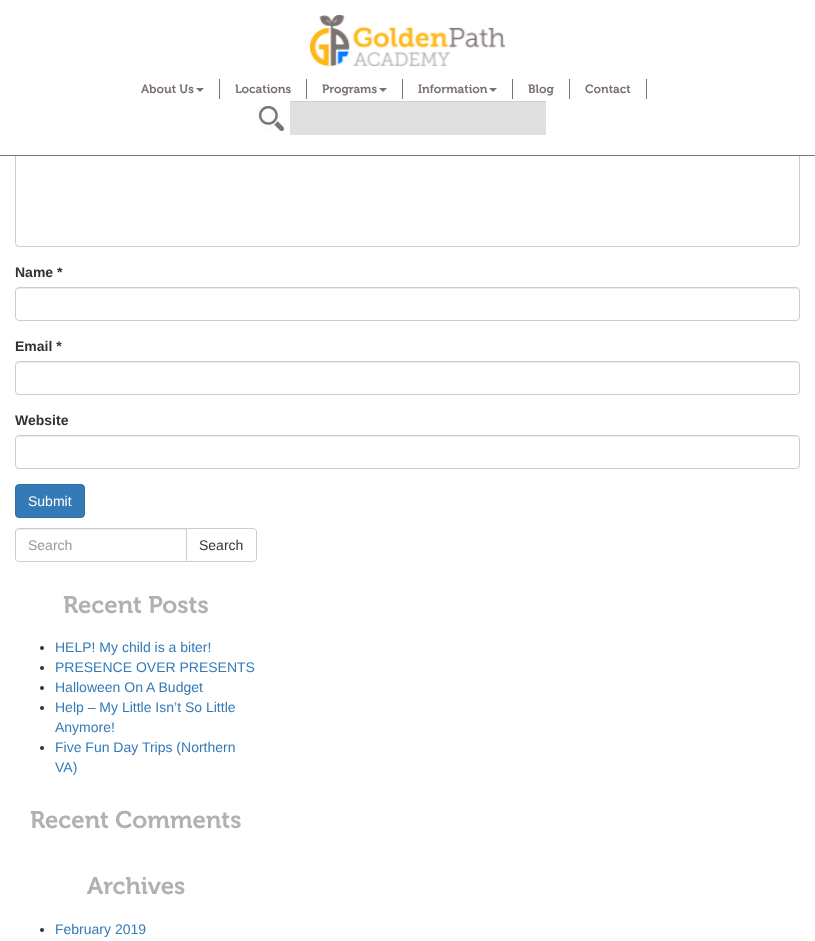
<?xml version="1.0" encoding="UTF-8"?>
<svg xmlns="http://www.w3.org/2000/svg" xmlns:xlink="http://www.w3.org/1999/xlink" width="815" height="941">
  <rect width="100%" height="100%" fill="#ffffff" />
  <rect x="15.5" y="73.5" width="784" height="173" rx="3.5" fill="none" stroke="#cccccc" />
  <rect x="15" y="73" width="785" height="82" fill="#ffffff" />
  <rect y="155" width="815" height="1" fill="#7b716f" />
  <image x="310" y="15" width="195" height="52" xlink:href="image1.png" />
  <rect x="219" y="79" width="1" height="20" fill="#7b716f" />
  <path d="M 196 88 h 8 l -4 4 z" fill="#7b716f" />
  <rect x="306" y="79" width="1" height="20" fill="#7b716f" />
  <rect x="402" y="79" width="1" height="20" fill="#7b716f" />
  <path d="M 379 88 h 8 l -4 4 z" fill="#7b716f" />
  <rect x="512" y="79" width="1" height="20" fill="#7b716f" />
  <path d="M 489 88 h 8 l -4 4 z" fill="#7b716f" />
  <rect x="569" y="79" width="1" height="20" fill="#7b716f" />
  <rect x="646" y="79" width="1" height="20" fill="#7b716f" />
  <image x="254" y="106" width="32" height="25" xlink:href="image2.png" />
  <rect x="290" y="102" width="256" height="33" fill="#e0e0e0" />
  <rect x="290" y="101" width="256" height="1" fill="#cfcfcf" />
  <path d="M 19 289 h 777 c 2 0 3 1 3 3 c 0 -2 -1 -4 -3 -4 h -777 c -2 0 -3 2 -3 4 c 0 -2 1 -3 3 -3 z" fill="#ececec" />
  <rect x="15.5" y="287.5" width="784" height="33" rx="3.5" fill="none" stroke="#cccccc" />
  <path d="M 19 363 h 777 c 2 0 3 1 3 3 c 0 -2 -1 -4 -3 -4 h -777 c -2 0 -3 2 -3 4 c 0 -2 1 -3 3 -3 z" fill="#ececec" />
  <rect x="15.5" y="361.5" width="784" height="33" rx="3.5" fill="none" stroke="#cccccc" />
  <path d="M 19 437 h 777 c 2 0 3 1 3 3 c 0 -2 -1 -4 -3 -4 h -777 c -2 0 -3 2 -3 4 c 0 -2 1 -3 3 -3 z" fill="#ececec" />
  <rect x="15.5" y="435.5" width="784" height="33" rx="3.5" fill="none" stroke="#cccccc" />
  <rect x="15.5" y="484.5" width="69" height="33" rx="3.5" fill="#337ab7" stroke="#2e6da4" />
  <path d="M 186.5 528.5 h 66.5 c 2 0 3.5 1.5 3.5 3.5 v 26 c 0 2 -1.5 3.5 -3.5 3.5 h -66.5 z" fill="none" stroke="#cccccc" />
  <path d="M 19 528 h 168 v 34 h -168 c -2 0 -4 -2 -4 -4 v -26 c 0 -2 2 -4 4 -4 z" fill="#ffffff" />
  <path d="M 19 530 h 167 v -1 h -168 c -2 0 -2 2 -2 4 c 0 -2 1 -3 3 -3 z" fill="#ececec" />
  <path d="M 19 528.5 h 167.5 v 33 h -167.5 c -2 0 -3.5 -1.5 -3.5 -3.5 v -26 c 0 -2 1.5 -3.5 3.5 -3.5 z" fill="none" stroke="#cccccc" />
  <circle cx="42" cy="648" r="2" fill="#333333" />
  <circle cx="42" cy="668" r="2" fill="#333333" />
  <circle cx="42" cy="688" r="2" fill="#333333" />
  <circle cx="42" cy="708" r="2" fill="#333333" />
  <circle cx="42" cy="748" r="2" fill="#333333" />
  <circle cx="42" cy="930" r="2" fill="#333333" />
  <text x="141" y="93" style="font-family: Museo; font-size: 12px; font-weight: 600; fill: #7b716f">About Us</text>
  <text x="235" y="93" style="font-family: Museo; font-size: 12px; font-weight: 600; fill: #7b716f">Locations</text>
  <text x="322" y="93" style="font-family: Museo; font-size: 12px; font-weight: 600; fill: #7b716f">Programs</text>
  <text x="418" y="93" style="font-family: Museo; font-size: 12px; font-weight: 600; fill: #7b716f">Information</text>
  <text x="528" y="93" style="font-family: Museo; font-size: 12px; font-weight: 600; fill: #7b716f">Blog</text>
  <text x="585" y="93" style="font-family: Museo; font-size: 12px; font-weight: 600; fill: #7b716f">Contact</text>
  <text x="15" y="277" style="font-family: Liberation Sans; font-size: 14px; font-weight: bold; fill: #333333">Name *</text>
  <text x="15" y="351" style="font-family: Liberation Sans; font-size: 14px; font-weight: bold; fill: #333333">Email *</text>
  <text x="15" y="425" style="font-family: Liberation Sans; font-size: 14px; font-weight: bold; fill: #333333">Website</text>
  <text x="28" y="506" style="font-family: Liberation Sans; font-size: 14px; fill: #ffffff">Submit</text>
  <text x="28" y="550" style="font-family: Liberation Sans; font-size: 14px; fill: #999999">Search</text>
  <text x="199" y="550" style="font-family: Liberation Sans; font-size: 14px; fill: #333333">Search</text>
  <text x="63" y="613" style="font-family: Museo; font-size: 24px; font-weight: 600; fill: #b1b1b1">Recent Posts</text>
  <text x="55" y="652" style="font-family: Liberation Sans; font-size: 14px; fill: #337ab7">HELP! My child is a biter!</text>
  <text x="55" y="672" style="font-family: Liberation Sans; font-size: 14px; fill: #337ab7">PRESENCE OVER PRESENTS</text>
  <text x="55" y="692" style="font-family: Liberation Sans; font-size: 14px; fill: #337ab7">Halloween On A Budget</text>
  <text x="55" y="712" style="font-family: Liberation Sans; font-size: 14px; fill: #337ab7">Help – My Little Isn’t So Little</text>
  <text x="55" y="732" style="font-family: Liberation Sans; font-size: 14px; fill: #337ab7">Anymore!</text>
  <text x="55" y="752" style="font-family: Liberation Sans; font-size: 14px; fill: #337ab7">Five Fun Day Trips (Northern</text>
  <text x="55" y="772" style="font-family: Liberation Sans; font-size: 14px; fill: #337ab7">VA)</text>
  <text x="30" y="828" style="font-family: Museo; font-size: 24px; font-weight: 600; fill: #b1b1b1">Recent Comments</text>
  <text x="87" y="894" style="font-family: Museo; font-size: 24px; font-weight: 600; fill: #b1b1b1">Archives</text>
  <text x="55" y="934" style="font-family: Liberation Sans; font-size: 14px; fill: #337ab7">February 2019</text>
</svg>
